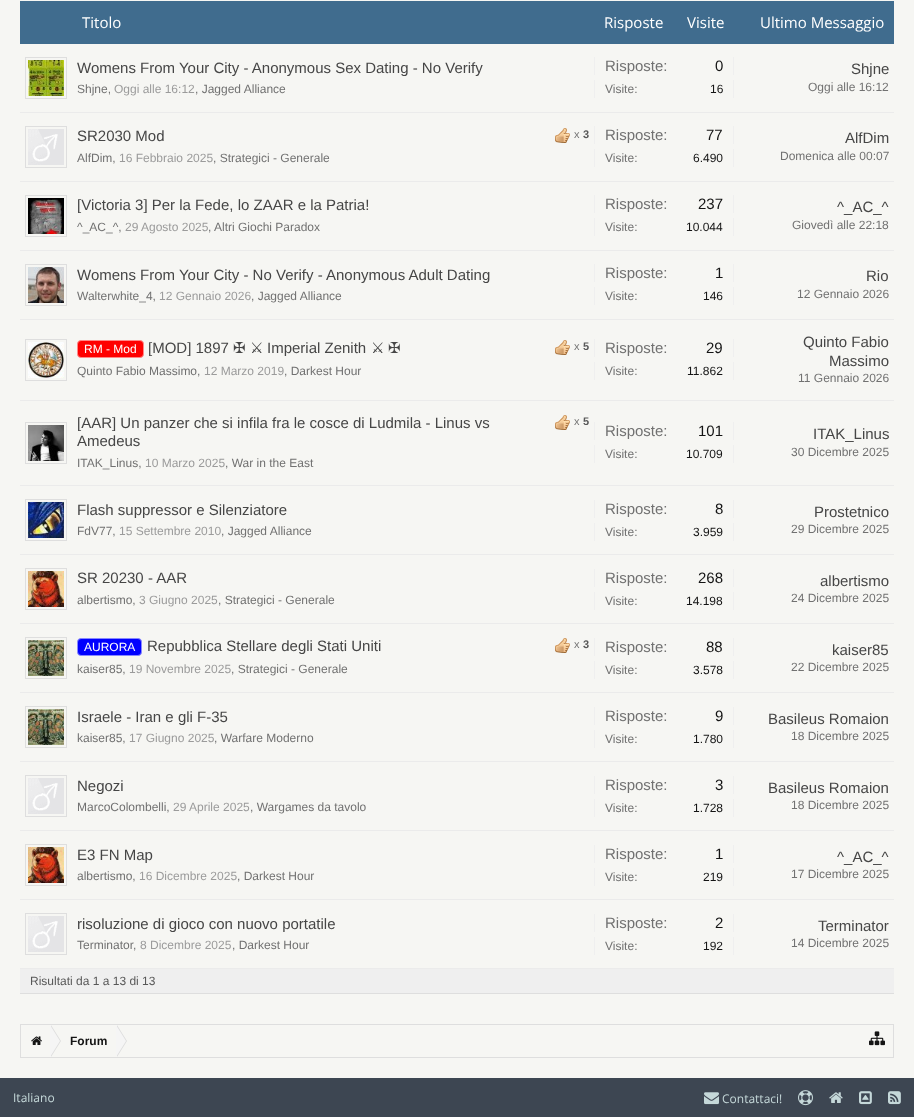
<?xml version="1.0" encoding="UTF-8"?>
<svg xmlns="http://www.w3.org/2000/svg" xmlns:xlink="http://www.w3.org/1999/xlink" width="914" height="1117">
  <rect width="100%" height="100%" fill="#3d4652" />
  <rect width="914" height="1078" fill="#f6f6f3" />
  <rect x="20" y="1" width="874" height="43" fill="#406c8e" />
  <rect x="20" y="112" width="874" height="1" fill="#ebebeb" />
  <rect x="25.5" y="57.5" width="41" height="41" fill="none" stroke="#dedede" />
  <image x="28" y="60" width="36" height="36" xlink:href="image1.png" />
  <rect x="733" y="57" width="1" height="18" fill="#efefef" />
  <rect x="594" y="57" width="1" height="18" fill="#efefef" />
  <rect x="733" y="80" width="1" height="18" fill="#efefef" />
  <rect x="594" y="80" width="1" height="18" fill="#efefef" />
  <rect x="20" y="181" width="874" height="1" fill="#ebebeb" />
  <rect x="25.5" y="126.5" width="41" height="41" fill="none" stroke="#dedede" />
  <image x="28" y="129" width="36" height="36" xlink:href="image2.png" />
  <image x="555" y="128" width="15" height="15" xlink:href="image3.png" />
  <rect x="733" y="126" width="1" height="18" fill="#efefef" />
  <rect x="594" y="126" width="1" height="18" fill="#efefef" />
  <rect x="733" y="149" width="1" height="18" fill="#efefef" />
  <rect x="594" y="149" width="1" height="18" fill="#efefef" />
  <rect x="20" y="250" width="874" height="1" fill="#ebebeb" />
  <rect x="25.5" y="195.5" width="41" height="41" fill="none" stroke="#dedede" />
  <image x="28" y="198" width="36" height="36" xlink:href="image4.png" />
  <rect x="733" y="195" width="1" height="18" fill="#efefef" />
  <rect x="594" y="195" width="1" height="18" fill="#efefef" />
  <rect x="733" y="218" width="1" height="18" fill="#efefef" />
  <rect x="594" y="218" width="1" height="18" fill="#efefef" />
  <rect x="20" y="319" width="874" height="1" fill="#ebebeb" />
  <rect x="25.5" y="264.5" width="41" height="41" fill="none" stroke="#dedede" />
  <image x="28" y="267" width="36" height="36" xlink:href="image5.png" />
  <rect x="733" y="264" width="1" height="18" fill="#efefef" />
  <rect x="594" y="264" width="1" height="18" fill="#efefef" />
  <rect x="733" y="287" width="1" height="18" fill="#efefef" />
  <rect x="594" y="287" width="1" height="18" fill="#efefef" />
  <rect x="20" y="400" width="874" height="1" fill="#ebebeb" />
  <rect x="25.5" y="339.5" width="41" height="41" fill="none" stroke="#dedede" />
  <image x="28" y="342" width="36" height="36" xlink:href="image6.png" />
  <rect x="77.5" y="340.5" width="66" height="17" rx="3.5" fill="#ff0000" stroke="#ff8888" />
  <image x="555" y="340" width="15" height="15" xlink:href="image3.png" />
  <rect x="733" y="339" width="1" height="18" fill="#efefef" />
  <rect x="594" y="339" width="1" height="18" fill="#efefef" />
  <rect x="733" y="362" width="1" height="18" fill="#efefef" />
  <rect x="594" y="362" width="1" height="18" fill="#efefef" />
  <rect x="20" y="485" width="874" height="1" fill="#ebebeb" />
  <rect x="25.5" y="422.5" width="41" height="41" fill="none" stroke="#dedede" />
  <image x="28" y="425" width="36" height="36" xlink:href="image7.png" />
  <image x="555" y="415" width="15" height="15" xlink:href="image3.png" />
  <rect x="733" y="422" width="1" height="18" fill="#efefef" />
  <rect x="594" y="422" width="1" height="18" fill="#efefef" />
  <rect x="733" y="445" width="1" height="18" fill="#efefef" />
  <rect x="594" y="445" width="1" height="18" fill="#efefef" />
  <rect x="20" y="554" width="874" height="1" fill="#ebebeb" />
  <rect x="25.5" y="499.5" width="41" height="41" fill="none" stroke="#dedede" />
  <image x="28" y="502" width="36" height="36" xlink:href="image8.png" />
  <rect x="733" y="500" width="1" height="18" fill="#efefef" />
  <rect x="594" y="500" width="1" height="18" fill="#efefef" />
  <rect x="733" y="523" width="1" height="18" fill="#efefef" />
  <rect x="594" y="523" width="1" height="18" fill="#efefef" />
  <rect x="20" y="623" width="874" height="1" fill="#ebebeb" />
  <rect x="25.5" y="568.5" width="41" height="41" fill="none" stroke="#dedede" />
  <image x="28" y="571" width="36" height="36" xlink:href="image9.png" />
  <rect x="733" y="569" width="1" height="18" fill="#efefef" />
  <rect x="594" y="569" width="1" height="18" fill="#efefef" />
  <rect x="733" y="592" width="1" height="18" fill="#efefef" />
  <rect x="594" y="592" width="1" height="18" fill="#efefef" />
  <rect x="20" y="692" width="874" height="1" fill="#ebebeb" />
  <rect x="25.5" y="637.5" width="41" height="41" fill="none" stroke="#dedede" />
  <image x="28" y="640" width="36" height="36" xlink:href="image10.png" />
  <rect x="77.5" y="638.5" width="64" height="17" rx="3.5" fill="#0000ff" stroke="#8888ff" />
  <image x="555" y="638" width="15" height="15" xlink:href="image3.png" />
  <rect x="733" y="638" width="1" height="18" fill="#efefef" />
  <rect x="594" y="638" width="1" height="18" fill="#efefef" />
  <rect x="733" y="661" width="1" height="18" fill="#efefef" />
  <rect x="594" y="661" width="1" height="18" fill="#efefef" />
  <rect x="20" y="761" width="874" height="1" fill="#ebebeb" />
  <rect x="25.5" y="706.5" width="41" height="41" fill="none" stroke="#dedede" />
  <image x="28" y="709" width="36" height="36" xlink:href="image10.png" />
  <rect x="733" y="707" width="1" height="18" fill="#efefef" />
  <rect x="594" y="707" width="1" height="18" fill="#efefef" />
  <rect x="733" y="730" width="1" height="18" fill="#efefef" />
  <rect x="594" y="730" width="1" height="18" fill="#efefef" />
  <rect x="20" y="830" width="874" height="1" fill="#ebebeb" />
  <rect x="25.5" y="775.5" width="41" height="41" fill="none" stroke="#dedede" />
  <image x="28" y="778" width="36" height="36" xlink:href="image2.png" />
  <rect x="733" y="776" width="1" height="18" fill="#efefef" />
  <rect x="594" y="776" width="1" height="18" fill="#efefef" />
  <rect x="733" y="799" width="1" height="18" fill="#efefef" />
  <rect x="594" y="799" width="1" height="18" fill="#efefef" />
  <rect x="20" y="899" width="874" height="1" fill="#ebebeb" />
  <rect x="25.5" y="844.5" width="41" height="41" fill="none" stroke="#dedede" />
  <image x="28" y="847" width="36" height="36" xlink:href="image9.png" />
  <rect x="733" y="845" width="1" height="18" fill="#efefef" />
  <rect x="594" y="845" width="1" height="18" fill="#efefef" />
  <rect x="733" y="868" width="1" height="18" fill="#efefef" />
  <rect x="594" y="868" width="1" height="18" fill="#efefef" />
  <rect x="20" y="968" width="874" height="1" fill="#ebebeb" />
  <rect x="25.5" y="913.5" width="41" height="41" fill="none" stroke="#dedede" />
  <image x="28" y="916" width="36" height="36" xlink:href="image2.png" />
  <rect x="733" y="914" width="1" height="18" fill="#efefef" />
  <rect x="594" y="914" width="1" height="18" fill="#efefef" />
  <rect x="733" y="937" width="1" height="18" fill="#efefef" />
  <rect x="594" y="937" width="1" height="18" fill="#efefef" />
  <rect x="20" y="969" width="874" height="24" fill="#efefef" />
  <rect x="20" y="993" width="874" height="1" fill="#dedede" />
  <rect x="20.5" y="1024.5" width="873" height="33" fill="none" stroke="#dedede" />
  <image x="31" y="1036" width="11" height="9" xlink:href="image11.png" />
  <path d="M 51 1057 v -32 l 10 16 z" fill="#dedede" />
  <path d="M 50 1057 v -32 l 10 16 z" fill="#f5f5f5" />
  <path d="M 117 1057 v -32 l 10 16 z" fill="#dedede" />
  <path d="M 116 1057 v -32 l 10 16 z" fill="#f5f5f5" />
  <image x="869" y="1031" width="16" height="15" xlink:href="image12.png" />
  <image x="704" y="1092" width="15" height="13" xlink:href="image13.png" />
  <image x="798" y="1090" width="15" height="16" xlink:href="image14.png" />
  <image x="829" y="1092" width="14" height="11" xlink:href="image15.png" />
  <image x="859" y="1091" width="13" height="14" xlink:href="image16.png" />
  <image x="888" y="1091" width="13" height="14" xlink:href="image17.png" />
  <text x="82" y="28" style="font-family: Open Sans; font-size: 15px; fill: #ffffff">Titolo</text>
  <text x="604" y="28" style="font-family: Open Sans; font-size: 15px; fill: #ffffff">Risposte</text>
  <text x="687" y="28" style="font-family: Open Sans; font-size: 15px; fill: #ffffff">Visite</text>
  <text x="760" y="28" style="font-family: Open Sans; font-size: 15px; fill: #ffffff">Ultimo Messaggio</text>
  <text x="77" y="73" style="font-family: Liberation Sans; font-size: 15px; fill: #464646">Womens From Your City - Anonymous Sex Dating - No Verify</text>
  <text x="77" y="93" style="font-family: Liberation Sans; font-size: 12px; fill: #717171">Shjne,</text>
  <text x="114" y="93" style="font-family: Liberation Sans; font-size: 12px; fill: #9b9b9b">Oggi alle 16:12</text>
  <text x="195" y="93" style="font-family: Liberation Sans; font-size: 12px; fill: #717171">, Jagged Alliance</text>
  <text x="605" y="71" style="font-family: Liberation Sans; font-size: 15px; fill: #717171">Risposte:</text>
  <text x="715" y="71" style="font-family: Liberation Sans; font-size: 15px; fill: #141414">0</text>
  <text x="605" y="93" style="font-family: Liberation Sans; font-size: 12px; fill: #717171">Visite:</text>
  <text x="710" y="93" style="font-family: Liberation Sans; font-size: 12px; fill: #141414">16</text>
  <text x="851" y="74" style="font-family: Liberation Sans; font-size: 15px; fill: #464646">Shjne</text>
  <text x="808" y="91" style="font-family: Liberation Sans; font-size: 12px; fill: #717171">Oggi alle 16:12</text>
  <text x="77" y="141" style="font-family: Liberation Sans; font-size: 15px; fill: #464646">SR2030 Mod</text>
  <text x="574" y="138" style="font-family: Liberation Sans; font-size: 11px; fill: #717171">x</text>
  <text x="583" y="138" style="font-family: Liberation Sans; font-size: 11px; font-weight: bold; fill: #585858">3</text>
  <text x="77" y="162" style="font-family: Liberation Sans; font-size: 12px; fill: #717171">AlfDim,</text>
  <text x="119" y="162" style="font-family: Liberation Sans; font-size: 12px; fill: #9b9b9b">16 Febbraio 2025</text>
  <text x="213" y="162" style="font-family: Liberation Sans; font-size: 12px; fill: #717171">, Strategici - Generale</text>
  <text x="605" y="140" style="font-family: Liberation Sans; font-size: 15px; fill: #717171">Risposte:</text>
  <text x="706" y="140" style="font-family: Liberation Sans; font-size: 15px; fill: #141414">77</text>
  <text x="605" y="162" style="font-family: Liberation Sans; font-size: 12px; fill: #717171">Visite:</text>
  <text x="693" y="162" style="font-family: Liberation Sans; font-size: 12px; fill: #141414">6.490</text>
  <text x="845" y="143" style="font-family: Liberation Sans; font-size: 15px; fill: #464646">AlfDim</text>
  <text x="780" y="160" style="font-family: Liberation Sans; font-size: 12px; fill: #717171">Domenica alle 00:07</text>
  <text x="77" y="210" style="font-family: Liberation Sans; font-size: 15px; fill: #464646">[Victoria 3] Per la Fede, lo ZAAR e la Patria!</text>
  <text x="77" y="231" style="font-family: Liberation Sans; font-size: 12px; fill: #717171">^_AC_^,</text>
  <text x="125" y="231" style="font-family: Liberation Sans; font-size: 12px; fill: #9b9b9b">29 Agosto 2025</text>
  <text x="208" y="231" style="font-family: Liberation Sans; font-size: 12px; fill: #717171">,</text>
  <text x="214" y="231" style="font-family: Liberation Sans; font-size: 12px; fill: #717171">Altri Giochi Paradox</text>
  <text x="605" y="209" style="font-family: Liberation Sans; font-size: 15px; fill: #717171">Risposte:</text>
  <text x="698" y="209" style="font-family: Liberation Sans; font-size: 15px; fill: #141414">237</text>
  <text x="605" y="231" style="font-family: Liberation Sans; font-size: 12px; fill: #717171">Visite:</text>
  <text x="686" y="231" style="font-family: Liberation Sans; font-size: 12px; fill: #141414">10.044</text>
  <text x="837" y="212" style="font-family: Liberation Sans; font-size: 15px; fill: #464646">^_AC_^</text>
  <text x="792" y="229" style="font-family: Liberation Sans; font-size: 12px; fill: #717171">Giovedì alle 22:18</text>
  <text x="77" y="280" style="font-family: Liberation Sans; font-size: 15px; fill: #464646">Womens From Your City - No Verify - Anonymous Adult Dating</text>
  <text x="77" y="300" style="font-family: Liberation Sans; font-size: 12px; fill: #717171">Walterwhite_4,</text>
  <text x="159" y="300" style="font-family: Liberation Sans; font-size: 12px; fill: #9b9b9b">12 Gennaio 2026</text>
  <text x="251" y="300" style="font-family: Liberation Sans; font-size: 12px; fill: #717171">, Jagged Alliance</text>
  <text x="605" y="278" style="font-family: Liberation Sans; font-size: 15px; fill: #717171">Risposte:</text>
  <text x="715" y="278" style="font-family: Liberation Sans; font-size: 15px; fill: #141414">1</text>
  <text x="605" y="300" style="font-family: Liberation Sans; font-size: 12px; fill: #717171">Visite:</text>
  <text x="703" y="300" style="font-family: Liberation Sans; font-size: 12px; fill: #141414">146</text>
  <text x="866" y="281" style="font-family: Liberation Sans; font-size: 15px; fill: #464646">Rio</text>
  <text x="797" y="298" style="font-family: Liberation Sans; font-size: 12px; fill: #717171">12 Gennaio 2026</text>
  <text x="84" y="353" style="font-family: Liberation Sans; font-size: 12px; fill: #ffffff">RM - Mod</text>
  <text x="148" y="353" style="font-family: Liberation Sans; font-size: 15px; fill: #464646">[MOD] 1897</text>
  <text x="233" y="353" style="font-family: DejaVu Sans; font-size: 15px; fill: #464646">✠</text>
  <text x="250" y="353" style="font-family: DejaVu Sans; font-size: 15px; fill: #464646">⚔</text>
  <text x="267" y="353" style="font-family: Liberation Sans; font-size: 15px; fill: #464646">Imperial Zenith</text>
  <text x="371" y="353" style="font-family: DejaVu Sans; font-size: 15px; fill: #464646">⚔</text>
  <text x="388" y="353" style="font-family: DejaVu Sans; font-size: 15px; fill: #464646">✠</text>
  <text x="574" y="350" style="font-family: Liberation Sans; font-size: 11px; fill: #717171">x</text>
  <text x="583" y="350" style="font-family: Liberation Sans; font-size: 11px; font-weight: bold; fill: #585858">5</text>
  <text x="77" y="375" style="font-family: Liberation Sans; font-size: 12px; fill: #717171">Quinto Fabio Massimo,</text>
  <text x="204" y="375" style="font-family: Liberation Sans; font-size: 12px; fill: #9b9b9b">12 Marzo 2019</text>
  <text x="284" y="375" style="font-family: Liberation Sans; font-size: 12px; fill: #717171">, Darkest Hour</text>
  <text x="605" y="353" style="font-family: Liberation Sans; font-size: 15px; fill: #717171">Risposte:</text>
  <text x="706" y="353" style="font-family: Liberation Sans; font-size: 15px; fill: #141414">29</text>
  <text x="605" y="375" style="font-family: Liberation Sans; font-size: 12px; fill: #717171">Visite:</text>
  <text x="687" y="375" style="font-family: Liberation Sans; font-size: 12px; fill: #141414">11.862</text>
  <text x="803" y="347" style="font-family: Liberation Sans; font-size: 15px; fill: #464646">Quinto Fabio</text>
  <text x="829" y="366" style="font-family: Liberation Sans; font-size: 15px; fill: #464646">Massimo</text>
  <text x="798" y="382" style="font-family: Liberation Sans; font-size: 12px; fill: #717171">11 Gennaio 2026</text>
  <text x="77" y="428" style="font-family: Liberation Sans; font-size: 15px; fill: #464646">[AAR] Un panzer che si infila fra le cosce di Ludmila - Linus vs</text>
  <text x="77" y="446" style="font-family: Liberation Sans; font-size: 15px; fill: #464646">Amedeus</text>
  <text x="574" y="425" style="font-family: Liberation Sans; font-size: 11px; fill: #717171">x</text>
  <text x="583" y="425" style="font-family: Liberation Sans; font-size: 11px; font-weight: bold; fill: #585858">5</text>
  <text x="77" y="467" style="font-family: Liberation Sans; font-size: 12px; fill: #717171">ITAK_Linus,</text>
  <text x="145" y="467" style="font-family: Liberation Sans; font-size: 12px; fill: #9b9b9b">10 Marzo 2025</text>
  <text x="225" y="467" style="font-family: Liberation Sans; font-size: 12px; fill: #717171">, War in the East</text>
  <text x="605" y="436" style="font-family: Liberation Sans; font-size: 15px; fill: #717171">Risposte:</text>
  <text x="698" y="436" style="font-family: Liberation Sans; font-size: 15px; fill: #141414">101</text>
  <text x="605" y="458" style="font-family: Liberation Sans; font-size: 12px; fill: #717171">Visite:</text>
  <text x="686" y="458" style="font-family: Liberation Sans; font-size: 12px; fill: #141414">10.709</text>
  <text x="813" y="439" style="font-family: Liberation Sans; font-size: 15px; fill: #464646">ITAK_Linus</text>
  <text x="791" y="456" style="font-family: Liberation Sans; font-size: 12px; fill: #717171">30 Dicembre 2025</text>
  <text x="77" y="515" style="font-family: Liberation Sans; font-size: 15px; fill: #464646">Flash suppressor e Silenziatore</text>
  <text x="77" y="535" style="font-family: Liberation Sans; font-size: 12px; fill: #717171">FdV77,</text>
  <text x="119" y="535" style="font-family: Liberation Sans; font-size: 12px; fill: #9b9b9b">15 Settembre 2010</text>
  <text x="221" y="535" style="font-family: Liberation Sans; font-size: 12px; fill: #717171">, Jagged Alliance</text>
  <text x="605" y="514" style="font-family: Liberation Sans; font-size: 15px; fill: #717171">Risposte:</text>
  <text x="715" y="514" style="font-family: Liberation Sans; font-size: 15px; fill: #141414">8</text>
  <text x="605" y="536" style="font-family: Liberation Sans; font-size: 12px; fill: #717171">Visite:</text>
  <text x="693" y="536" style="font-family: Liberation Sans; font-size: 12px; fill: #141414">3.959</text>
  <text x="814" y="517" style="font-family: Liberation Sans; font-size: 15px; fill: #464646">Prostetnico</text>
  <text x="791" y="533" style="font-family: Liberation Sans; font-size: 12px; fill: #717171">29 Dicembre 2025</text>
  <text x="77" y="583" style="font-family: Liberation Sans; font-size: 15px; fill: #464646">SR 20230 - AAR</text>
  <text x="77" y="604" style="font-family: Liberation Sans; font-size: 12px; fill: #717171">albertismo,</text>
  <text x="139" y="604" style="font-family: Liberation Sans; font-size: 12px; fill: #9b9b9b">3 Giugno 2025</text>
  <text x="218" y="604" style="font-family: Liberation Sans; font-size: 12px; fill: #717171">, Strategici - Generale</text>
  <text x="605" y="583" style="font-family: Liberation Sans; font-size: 15px; fill: #717171">Risposte:</text>
  <text x="698" y="583" style="font-family: Liberation Sans; font-size: 15px; fill: #141414">268</text>
  <text x="605" y="605" style="font-family: Liberation Sans; font-size: 12px; fill: #717171">Visite:</text>
  <text x="686" y="605" style="font-family: Liberation Sans; font-size: 12px; fill: #141414">14.198</text>
  <text x="820" y="586" style="font-family: Liberation Sans; font-size: 15px; fill: #464646">albertismo</text>
  <text x="791" y="602" style="font-family: Liberation Sans; font-size: 12px; fill: #717171">24 Dicembre 2025</text>
  <text x="84" y="651" style="font-family: Liberation Sans; font-size: 12px; fill: #ffffff">AURORA</text>
  <text x="147" y="651" style="font-family: Liberation Sans; font-size: 15px; fill: #464646">Repubblica Stellare degli Stati Uniti</text>
  <text x="574" y="648" style="font-family: Liberation Sans; font-size: 11px; fill: #717171">x</text>
  <text x="583" y="648" style="font-family: Liberation Sans; font-size: 11px; font-weight: bold; fill: #585858">3</text>
  <text x="77" y="673" style="font-family: Liberation Sans; font-size: 12px; fill: #717171">kaiser85,</text>
  <text x="129" y="673" style="font-family: Liberation Sans; font-size: 12px; fill: #9b9b9b">19 Novembre 2025</text>
  <text x="231" y="673" style="font-family: Liberation Sans; font-size: 12px; fill: #717171">, Strategici - Generale</text>
  <text x="605" y="652" style="font-family: Liberation Sans; font-size: 15px; fill: #717171">Risposte:</text>
  <text x="706" y="652" style="font-family: Liberation Sans; font-size: 15px; fill: #141414">88</text>
  <text x="605" y="674" style="font-family: Liberation Sans; font-size: 12px; fill: #717171">Visite:</text>
  <text x="693" y="674" style="font-family: Liberation Sans; font-size: 12px; fill: #141414">3.578</text>
  <text x="832" y="655" style="font-family: Liberation Sans; font-size: 15px; fill: #464646">kaiser85</text>
  <text x="791" y="671" style="font-family: Liberation Sans; font-size: 12px; fill: #717171">22 Dicembre 2025</text>
  <text x="77" y="722" style="font-family: Liberation Sans; font-size: 15px; fill: #464646">Israele - Iran e gli F-35</text>
  <text x="77" y="742" style="font-family: Liberation Sans; font-size: 12px; fill: #717171">kaiser85,</text>
  <text x="129" y="742" style="font-family: Liberation Sans; font-size: 12px; fill: #9b9b9b">17 Giugno 2025</text>
  <text x="214" y="742" style="font-family: Liberation Sans; font-size: 12px; fill: #717171">, Warfare Moderno</text>
  <text x="605" y="721" style="font-family: Liberation Sans; font-size: 15px; fill: #717171">Risposte:</text>
  <text x="715" y="721" style="font-family: Liberation Sans; font-size: 15px; fill: #141414">9</text>
  <text x="605" y="743" style="font-family: Liberation Sans; font-size: 12px; fill: #717171">Visite:</text>
  <text x="693" y="743" style="font-family: Liberation Sans; font-size: 12px; fill: #141414">1.780</text>
  <text x="768" y="724" style="font-family: Liberation Sans; font-size: 15px; fill: #464646">Basileus Romaion</text>
  <text x="791" y="740" style="font-family: Liberation Sans; font-size: 12px; fill: #717171">18 Dicembre 2025</text>
  <text x="77" y="791" style="font-family: Liberation Sans; font-size: 15px; fill: #464646">Negozi</text>
  <text x="77" y="811" style="font-family: Liberation Sans; font-size: 12px; fill: #717171">MarcoColombelli,</text>
  <text x="173" y="811" style="font-family: Liberation Sans; font-size: 12px; fill: #9b9b9b">29 Aprile 2025</text>
  <text x="250" y="811" style="font-family: Liberation Sans; font-size: 12px; fill: #717171">, Wargames da tavolo</text>
  <text x="605" y="790" style="font-family: Liberation Sans; font-size: 15px; fill: #717171">Risposte:</text>
  <text x="715" y="790" style="font-family: Liberation Sans; font-size: 15px; fill: #141414">3</text>
  <text x="605" y="812" style="font-family: Liberation Sans; font-size: 12px; fill: #717171">Visite:</text>
  <text x="693" y="812" style="font-family: Liberation Sans; font-size: 12px; fill: #141414">1.728</text>
  <text x="768" y="793" style="font-family: Liberation Sans; font-size: 15px; fill: #464646">Basileus Romaion</text>
  <text x="791" y="809" style="font-family: Liberation Sans; font-size: 12px; fill: #717171">18 Dicembre 2025</text>
  <text x="77" y="860" style="font-family: Liberation Sans; font-size: 15px; fill: #464646">E3 FN Map</text>
  <text x="77" y="880" style="font-family: Liberation Sans; font-size: 12px; fill: #717171">albertismo,</text>
  <text x="139" y="880" style="font-family: Liberation Sans; font-size: 12px; fill: #9b9b9b">16 Dicembre 2025</text>
  <text x="237" y="880" style="font-family: Liberation Sans; font-size: 12px; fill: #717171">, Darkest Hour</text>
  <text x="605" y="859" style="font-family: Liberation Sans; font-size: 15px; fill: #717171">Risposte:</text>
  <text x="715" y="859" style="font-family: Liberation Sans; font-size: 15px; fill: #141414">1</text>
  <text x="605" y="881" style="font-family: Liberation Sans; font-size: 12px; fill: #717171">Visite:</text>
  <text x="703" y="881" style="font-family: Liberation Sans; font-size: 12px; fill: #141414">219</text>
  <text x="837" y="862" style="font-family: Liberation Sans; font-size: 15px; fill: #464646">^_AC_^</text>
  <text x="791" y="878" style="font-family: Liberation Sans; font-size: 12px; fill: #717171">17 Dicembre 2025</text>
  <text x="77" y="929" style="font-family: Liberation Sans; font-size: 15px; fill: #464646">risoluzione di gioco con nuovo portatile</text>
  <text x="77" y="949" style="font-family: Liberation Sans; font-size: 12px; fill: #717171">Terminator,</text>
  <text x="140" y="949" style="font-family: Liberation Sans; font-size: 12px; fill: #9b9b9b">8 Dicembre 2025</text>
  <text x="232" y="949" style="font-family: Liberation Sans; font-size: 12px; fill: #717171">, Darkest Hour</text>
  <text x="605" y="928" style="font-family: Liberation Sans; font-size: 15px; fill: #717171">Risposte:</text>
  <text x="715" y="928" style="font-family: Liberation Sans; font-size: 15px; fill: #141414">2</text>
  <text x="605" y="950" style="font-family: Liberation Sans; font-size: 12px; fill: #717171">Visite:</text>
  <text x="703" y="950" style="font-family: Liberation Sans; font-size: 12px; fill: #141414">192</text>
  <text x="818" y="931" style="font-family: Liberation Sans; font-size: 15px; fill: #464646">Terminator</text>
  <text x="791" y="947" style="font-family: Liberation Sans; font-size: 12px; fill: #717171">14 Dicembre 2025</text>
  <text x="30" y="985" style="font-family: Liberation Sans; font-size: 12px; fill: #585858">Risultati da 1 a 13 di 13</text>
  <text x="70" y="1045" style="font-family: Liberation Sans; font-size: 12px; font-weight: bold; fill: #141414">Forum</text>
  <text x="13" y="1102" style="font-family: Open Sans; font-size: 12px; fill: #c5d8d9">Italiano</text>
  <text x="722" y="1103" style="font-family: Open Sans; font-size: 12px; fill: #c5d8d9">Contattaci!</text>
</svg>
